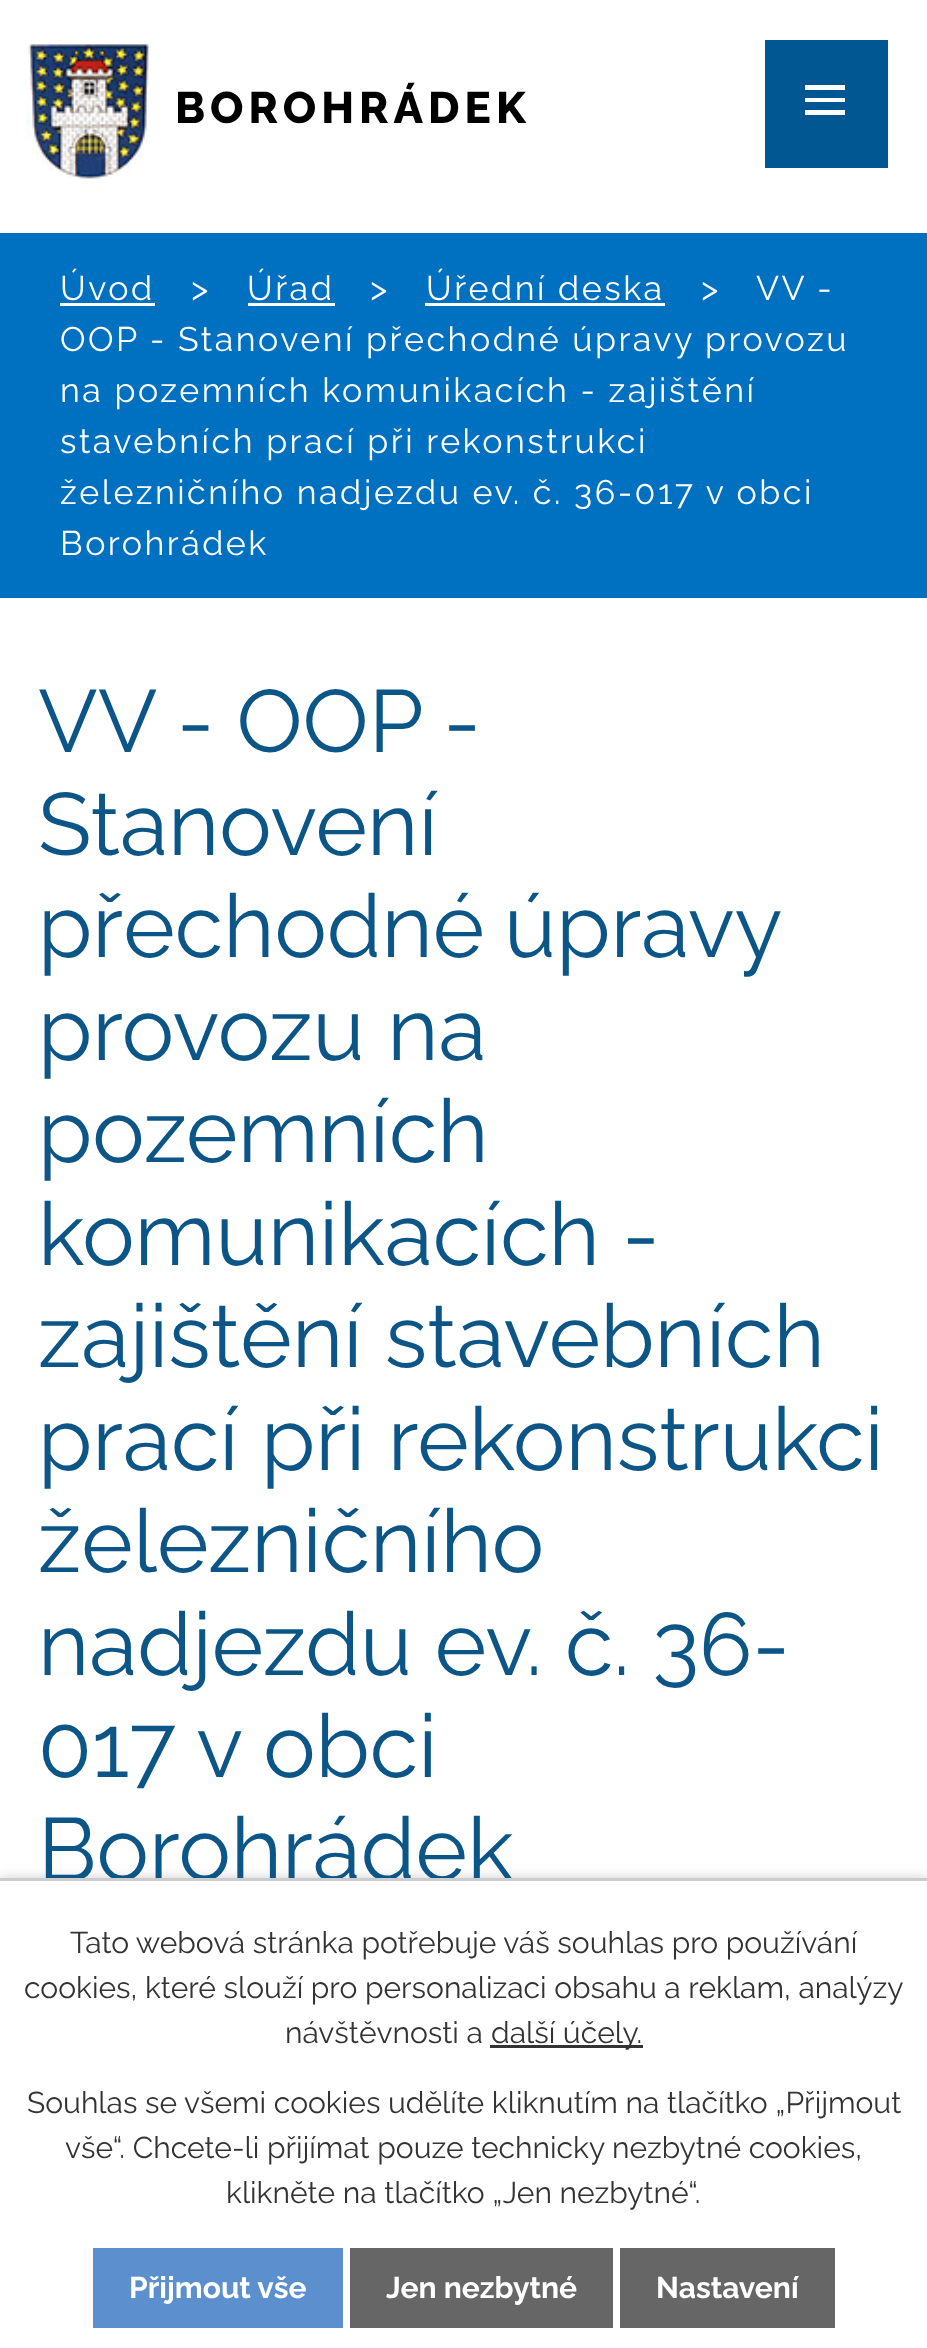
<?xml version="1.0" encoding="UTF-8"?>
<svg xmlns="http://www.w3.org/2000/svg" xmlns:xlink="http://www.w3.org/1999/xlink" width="927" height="2348">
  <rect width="100%" height="100%" fill="#ffffff" />
  <image x="25" y="42" width="125" height="138" xlink:href="image1.png" />
  <rect x="765" y="40" width="123" height="128" fill="#015792" />
  <path d="M 805 115 v -5 h 40 v 5 z m 0 -30 h 40 v 5 h -40 z m 0 17 v -4 h 40 v 4 z" fill="#ffffff" />
  <rect y="233" width="927" height="365" fill="#0070c0" />
  <rect x="60" y="303" width="95" height="3" fill="#ffffff" />
  <rect x="248" y="303" width="87" height="3" fill="#ffffff" />
  <rect x="425" y="303" width="240" height="3" fill="#ffffff" />
  <rect y="1878" width="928" height="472" fill="#000000" fill-opacity="0.2" filter="blur(6px)" />
  <rect y="1881" width="927" height="467" fill="#ffffff" />
  <rect x="490" y="2045" width="153" height="3" fill="#333333" />
  <rect x="93" y="2248" width="250" height="80" fill="#5b8fcd" />
  <rect x="350" y="2248" width="263" height="80" fill="#666666" />
  <rect x="620" y="2248" width="215" height="80" fill="#666666" />
  <text x="175" y="123" style="font-family: Raleway; font-size: 44px; font-weight: 800; letter-spacing: 5px; fill: #000000">BOROHRÁDEK</text>
  <text x="60" y="300" style="font-family: Raleway; font-size: 34px; letter-spacing: 2.5px; fill: #ffffff">Úvod</text>
  <text x="191" y="300" style="font-family: Raleway; font-size: 34px; letter-spacing: 2.5px; fill: #ffffff">&gt;</text>
  <text x="247" y="300" style="font-family: Raleway; font-size: 34px; letter-spacing: 2.5px; fill: #ffffff">Úřad</text>
  <text x="370" y="300" style="font-family: Raleway; font-size: 34px; letter-spacing: 2.5px; fill: #ffffff">&gt;</text>
  <text x="426" y="300" style="font-family: Raleway; font-size: 34px; letter-spacing: 2.5px; fill: #ffffff">Úřední deska</text>
  <text x="701" y="300" style="font-family: Raleway; font-size: 34px; letter-spacing: 2.5px; fill: #ffffff">&gt;</text>
  <text x="756" y="300" style="font-family: Raleway; font-size: 34px; letter-spacing: 2.5px; fill: #ffffff">VV -</text>
  <text x="60" y="351" style="font-family: Raleway; font-size: 34px; letter-spacing: 2.5px; fill: #ffffff">OOP - Stanovení přechodné úpravy provozu</text>
  <text x="60" y="402" style="font-family: Raleway; font-size: 34px; letter-spacing: 2.5px; fill: #ffffff">na pozemních komunikacích - zajištění</text>
  <text x="60" y="453" style="font-family: Raleway; font-size: 34px; letter-spacing: 2.5px; fill: #ffffff">stavebních prací při rekonstrukci</text>
  <text x="60" y="504" style="font-family: Raleway; font-size: 34px; letter-spacing: 2.5px; fill: #ffffff">železničního nadjezdu ev. č. 36-017 v obci</text>
  <text x="60" y="555" style="font-family: Raleway; font-size: 34px; letter-spacing: 2.5px; fill: #ffffff">Borohrádek</text>
  <text x="38" y="752" style="font-family: Raleway; font-size: 88px; fill: #0c5587">VV - OOP -</text>
  <text x="38" y="855" style="font-family: Raleway; font-size: 88px; fill: #0c5587">Stanovení</text>
  <text x="38" y="957" word-spacing="-3" style="font-family: Raleway; font-size: 88px; fill: #0c5587">přechodné úpravy</text>
  <text x="38" y="1060" style="font-family: Raleway; font-size: 88px; fill: #0c5587">provozu na</text>
  <text x="38" y="1162" style="font-family: Raleway; font-size: 88px; fill: #0c5587">pozemních</text>
  <text x="38" y="1265" style="font-family: Raleway; font-size: 88px; fill: #0c5587">komunikacích -</text>
  <text x="38" y="1367" style="font-family: Raleway; font-size: 88px; fill: #0c5587">zajištění stavebních</text>
  <text x="38" y="1470" style="font-family: Raleway; font-size: 88px; fill: #0c5587">prací při rekonstrukci</text>
  <text x="38" y="1572" style="font-family: Raleway; font-size: 88px; fill: #0c5587">železničního</text>
  <text x="38" y="1675" style="font-family: Raleway; font-size: 88px; fill: #0c5587">nadjezdu ev. č. 36-</text>
  <text x="38" y="1777" style="font-family: Raleway; font-size: 88px; fill: #0c5587">017 v obci</text>
  <text x="38" y="1880" style="font-family: Raleway; font-size: 88px; fill: #0c5587">Borohrádek</text>
  <rect y="1878" width="927" height="3" fill="#cccccc" />
  <text x="70" y="1953" style="font-family: Raleway; font-size: 30px; fill: #333333">Tato webová stránka potřebuje váš souhlas pro používání</text>
  <text x="24" y="1998" style="font-family: Raleway; font-size: 30px; fill: #333333">cookies, které slouží pro personalizaci obsahu a reklam, analýzy</text>
  <text x="285" y="2043" style="font-family: Raleway; font-size: 30px; fill: #333333">návštěvnosti a</text>
  <text x="491" y="2043" style="font-family: Raleway; font-size: 30px; fill: #333333">další účely.</text>
  <text x="27" y="2113" style="font-family: Raleway; font-size: 30px; fill: #333333">Souhlas se všemi cookies udělíte kliknutím na tlačítko „Přijmout</text>
  <text x="65" y="2158" style="font-family: Raleway; font-size: 30px; fill: #333333">vše“. Chcete-li přijímat pouze technicky nezbytné cookies,</text>
  <text x="226" y="2203" style="font-family: Raleway; font-size: 30px; fill: #333333">klikněte na tlačítko „Jen nezbytné“.</text>
  <text x="129" y="2298" style="font-family: Raleway; font-size: 30px; font-weight: bold; fill: #ffffff">Přijmout vše</text>
  <text x="386" y="2298" style="font-family: Raleway; font-size: 30px; font-weight: bold; fill: #ffffff">Jen nezbytné</text>
  <text x="656" y="2298" style="font-family: Raleway; font-size: 30px; font-weight: bold; fill: #ffffff">Nastavení</text>
</svg>
